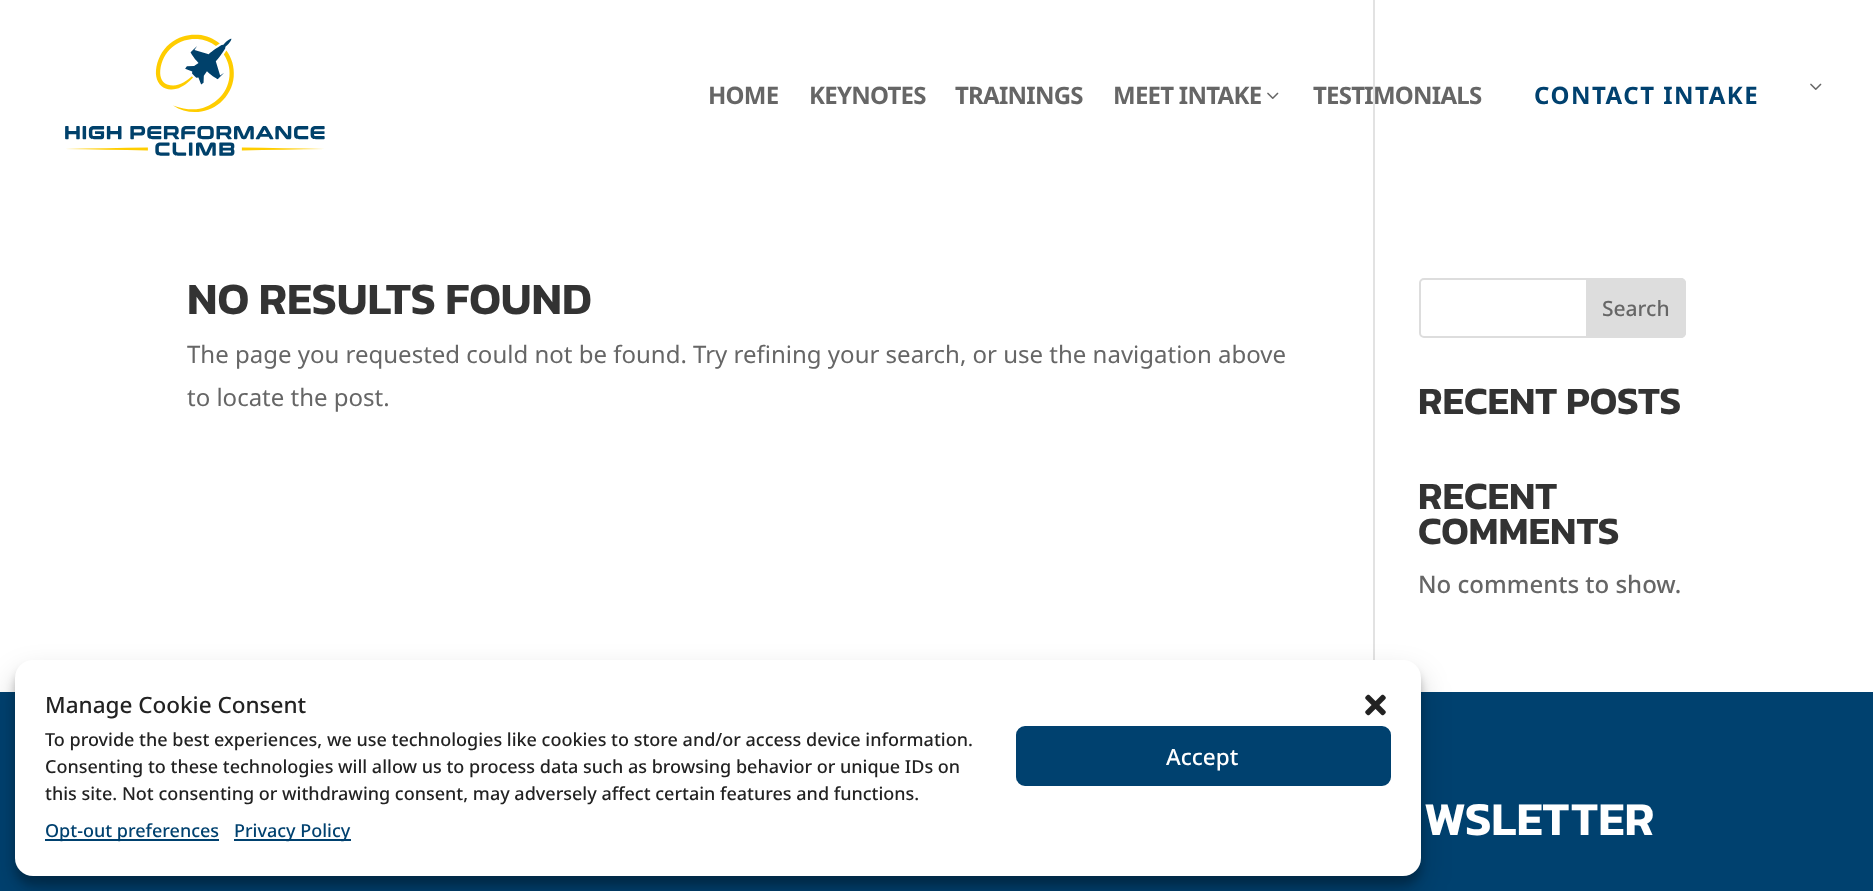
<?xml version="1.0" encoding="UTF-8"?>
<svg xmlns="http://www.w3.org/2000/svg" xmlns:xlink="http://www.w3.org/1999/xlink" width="1873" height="891">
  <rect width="100%" height="100%" fill="#ffffff" />
  <image x="65" y="34" width="260" height="122" xlink:href="image1.png" />
  <image x="1267" y="92" width="12" height="7" xlink:href="image2.png" />
  <image x="1810" y="83" width="12" height="7" xlink:href="image2.png" />
  <rect x="1373" width="2" height="660" fill="#e2e2e2" />
  <rect x="1420" y="279" width="265" height="58" rx="4" fill="none" stroke="#dddddd" stroke-width="2" />
  <path d="M 1587 279 h 94 c 2 0 4 2 4 4 v 50 c 0 2 -2 4 -4 4 h -94 z" fill="#dddddd" stroke="#dddddd" stroke-width="2" />
  <rect y="692" width="1873" height="199" fill="#00416f" />
  <rect x="15" y="669" width="1406" height="216" rx="18" fill="#000000" fill-opacity="0.23" filter="blur(4.5px)" />
  <rect x="15" y="675" width="1406" height="216" rx="18" fill="#000000" fill-opacity="0.19" filter="blur(15px)" />
  <rect x="15" y="660" width="1406" height="216" rx="18" fill="#ffffff" />
  <image x="1365" y="694" width="21" height="22" xlink:href="image3.png" />
  <rect x="1017" y="727" width="373" height="58" rx="8" fill="#00416f" stroke="#00416f" stroke-width="2" />
  <rect x="45" y="839" width="174" height="2" fill="#00416f" />
  <rect x="234" y="839" width="117" height="2" fill="#00416f" />
  <text x="708" y="104" style="font-family: Noto Sans; font-size: 24px; font-weight: bold; letter-spacing: -0.75px; fill: #666666">HOME</text>
  <text x="809" y="104" style="font-family: Noto Sans; font-size: 24px; font-weight: bold; letter-spacing: -0.75px; fill: #666666">KEYNOTES</text>
  <text x="955" y="104" style="font-family: Noto Sans; font-size: 24px; font-weight: bold; letter-spacing: -0.75px; fill: #666666">TRAININGS</text>
  <text x="1113" y="104" style="font-family: Noto Sans; font-size: 24px; font-weight: bold; letter-spacing: -0.75px; fill: #666666">MEET INTAKE</text>
  <text x="1313" y="104" style="font-family: Noto Sans; font-size: 24px; font-weight: bold; letter-spacing: -0.75px; fill: #666666">TESTIMONIALS</text>
  <text x="1534" y="104" style="font-family: Noto Sans; font-size: 24px; font-weight: bold; letter-spacing: 1.5px; fill: #00416f">CONTACT INTAKE</text>
  <text x="187" y="314" style="font-family: Kanit; font-size: 45px; font-weight: 600; fill: #333333">NO RESULTS FOUND</text>
  <text x="187" y="363" style="font-family: Noto Sans; font-size: 24px; fill: #666666">The page you requested could not be found. Try refining your search, or use the navigation above</text>
  <text x="187" y="406" style="font-family: Noto Sans; font-size: 24px; fill: #666666">to locate the post.</text>
  <text x="1602" y="316" style="font-family: Noto Sans; font-size: 21px; font-weight: 500; fill: #666666">Search</text>
  <text x="1418" y="414" style="font-family: Kanit; font-size: 39px; font-weight: 600; fill: #333333">RECENT POSTS</text>
  <text x="1418" y="509" style="font-family: Kanit; font-size: 39px; font-weight: 600; fill: #333333">RECENT</text>
  <text x="1418" y="544" style="font-family: Kanit; font-size: 39px; font-weight: 600; fill: #333333">COMMENTS</text>
  <text x="1418" y="593" style="font-family: Noto Sans; font-size: 24px; font-weight: 500; fill: #666666">No comments to show.</text>
  <text x="1424" y="835" style="font-family: Kanit; font-size: 47.5px; font-weight: 600; fill: #ffffff">WSLETTER</text>
  <text x="45" y="713" style="font-family: Noto Sans; font-size: 22.5px; font-weight: 500; fill: #222222">Manage Cookie Consent</text>
  <text x="45" y="746" style="font-family: Noto Sans; font-size: 18px; font-weight: 500; fill: #222222">To provide the best experiences, we use technologies like cookies to store and/or access device information.</text>
  <text x="45" y="773" style="font-family: Noto Sans; font-size: 18px; font-weight: 500; fill: #222222">Consenting to these technologies will allow us to process data such as browsing behavior or unique IDs on</text>
  <text x="45" y="800" style="font-family: Noto Sans; font-size: 18px; font-weight: 500; fill: #222222">this site. Not consenting or withdrawing consent, may adversely affect certain features and functions.</text>
  <text x="1166" y="765" style="font-family: Noto Sans; font-size: 22.5px; font-weight: 500; fill: #ffffff">Accept</text>
  <text x="45" y="837" style="font-family: Noto Sans; font-size: 18px; font-weight: 500; fill: #00416f">Opt-out preferences</text>
  <text x="234" y="837" style="font-family: Noto Sans; font-size: 18px; font-weight: 500; fill: #00416f">Privacy Policy</text>
</svg>
